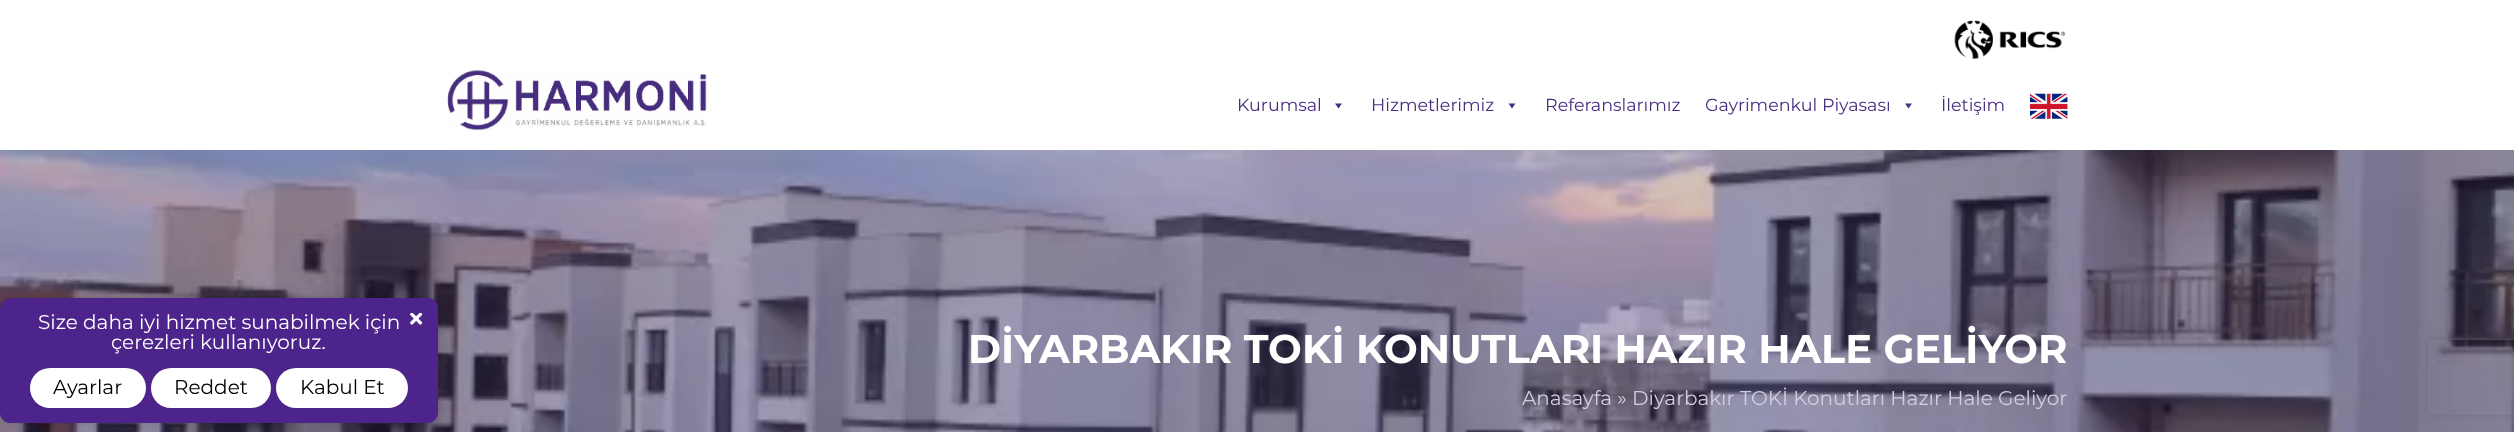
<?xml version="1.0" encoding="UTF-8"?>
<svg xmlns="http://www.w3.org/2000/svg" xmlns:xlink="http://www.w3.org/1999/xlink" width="2514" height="432">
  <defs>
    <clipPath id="clip1"><path d="M 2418 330 h 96 v 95 h -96 z m 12.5 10 h 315 c 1.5 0 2.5 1 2.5 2.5 v 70 c 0 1.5 -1 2.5 -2.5 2.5 h -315 c -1.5 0 -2.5 -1 -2.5 -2.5 v -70 c 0 -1.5 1 -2.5 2.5 -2.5 z" clip-rule="evenodd" /></clipPath>
  </defs>
  <rect width="100%" height="100%" fill="#ffffff" />
  <image x="1954" y="20" width="111" height="40" xlink:href="image1.png" />
  <image x="447" y="70" width="260" height="60" xlink:href="image2.png" />
  <path d="M 1342 103.5 l -3.5 5 l -3.5 -5 z" fill="#492d80" />
  <path d="M 1515.5 103.5 l -3.5 5 l -3.5 -5 z" fill="#492d80" />
  <path d="M 1912 103.5 l -3.5 5 l -3.5 -5 z" fill="#492d80" />
  <image x="2030" y="93" width="38" height="26" xlink:href="image3.png" />
  <image x="0" y="150" width="2514" height="282" xlink:href="image5.png" />
  <rect x="6" y="304" width="425" height="112" rx="5" fill="#000000" filter="blur(5px)" />
  <path d="M 11 298 h 417 c 5.5 0 10 4.5 10 10 v 105 c 0 5.5 -4.5 10 -10 10 h -418 c -5.5 0 -10 -4.5 -10 -10 v -104 c 0 -6 5 -11 11 -11 z" fill="#4c248b" />
  <image x="410" y="313" width="13" height="12" xlink:href="image4.png" />
  <rect x="30" y="368" width="116" height="40" rx="20" fill="#ffffff" />
  <rect x="151" y="368" width="120" height="40" rx="20" fill="#ffffff" />
  <rect x="276" y="368" width="132" height="40" rx="20" fill="#ffffff" />
  <g clip-path="url(#clip1)">
    <rect x="2428" y="340" width="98" height="75" rx="2.5" fill="#736c80" filter="blur(3px)" />
  </g>
  <text x="1237" y="111" style="font-family: Montserrat; font-size: 17.5px; fill: #492d80">Kurumsal</text>
  <text x="1371" y="111" style="font-family: Montserrat; font-size: 17.5px; fill: #492d80">Hizmetlerimiz</text>
  <text x="1545" y="111" style="font-family: Montserrat; font-size: 17.5px; fill: #492d80">Referanslarımız</text>
  <text x="1705" y="111" style="font-family: Montserrat; font-size: 17.5px; fill: #492d80">Gayrimenkul Piyasası</text>
  <text x="1941" y="111" style="font-family: Montserrat; font-size: 17.5px; fill: #492d80">İletişim</text>
  <text x="38" y="329" style="font-family: Montserrat; font-size: 20px; fill: #ffffff">Size daha iyi hizmet sunabilmek için</text>
  <text x="111" y="349" style="font-family: Montserrat; font-size: 20px; fill: #ffffff">çerezleri kullanıyoruz.</text>
  <text x="53" y="394" style="font-family: Montserrat; font-size: 20px; fill: #000000">Ayarlar</text>
  <text x="174" y="394" style="font-family: Montserrat; font-size: 20px; fill: #000000">Reddet</text>
  <text x="300" y="394" style="font-family: Montserrat; font-size: 20px; fill: #000000">Kabul Et</text>
  <text x="968" y="363" style="font-family: Montserrat; font-size: 40px; font-weight: bold; fill: #ffffff">DİYARBAKIR TOKİ KONUTLARI HAZIR HALE GELİYOR</text>
  <text x="1522" y="405" style="font-family: Montserrat; font-size: 20px; fill: #d3cde1">Anasayfa » Diyarbakır TOKİ Konutları Hazır Hale Geliyor</text>
</svg>
